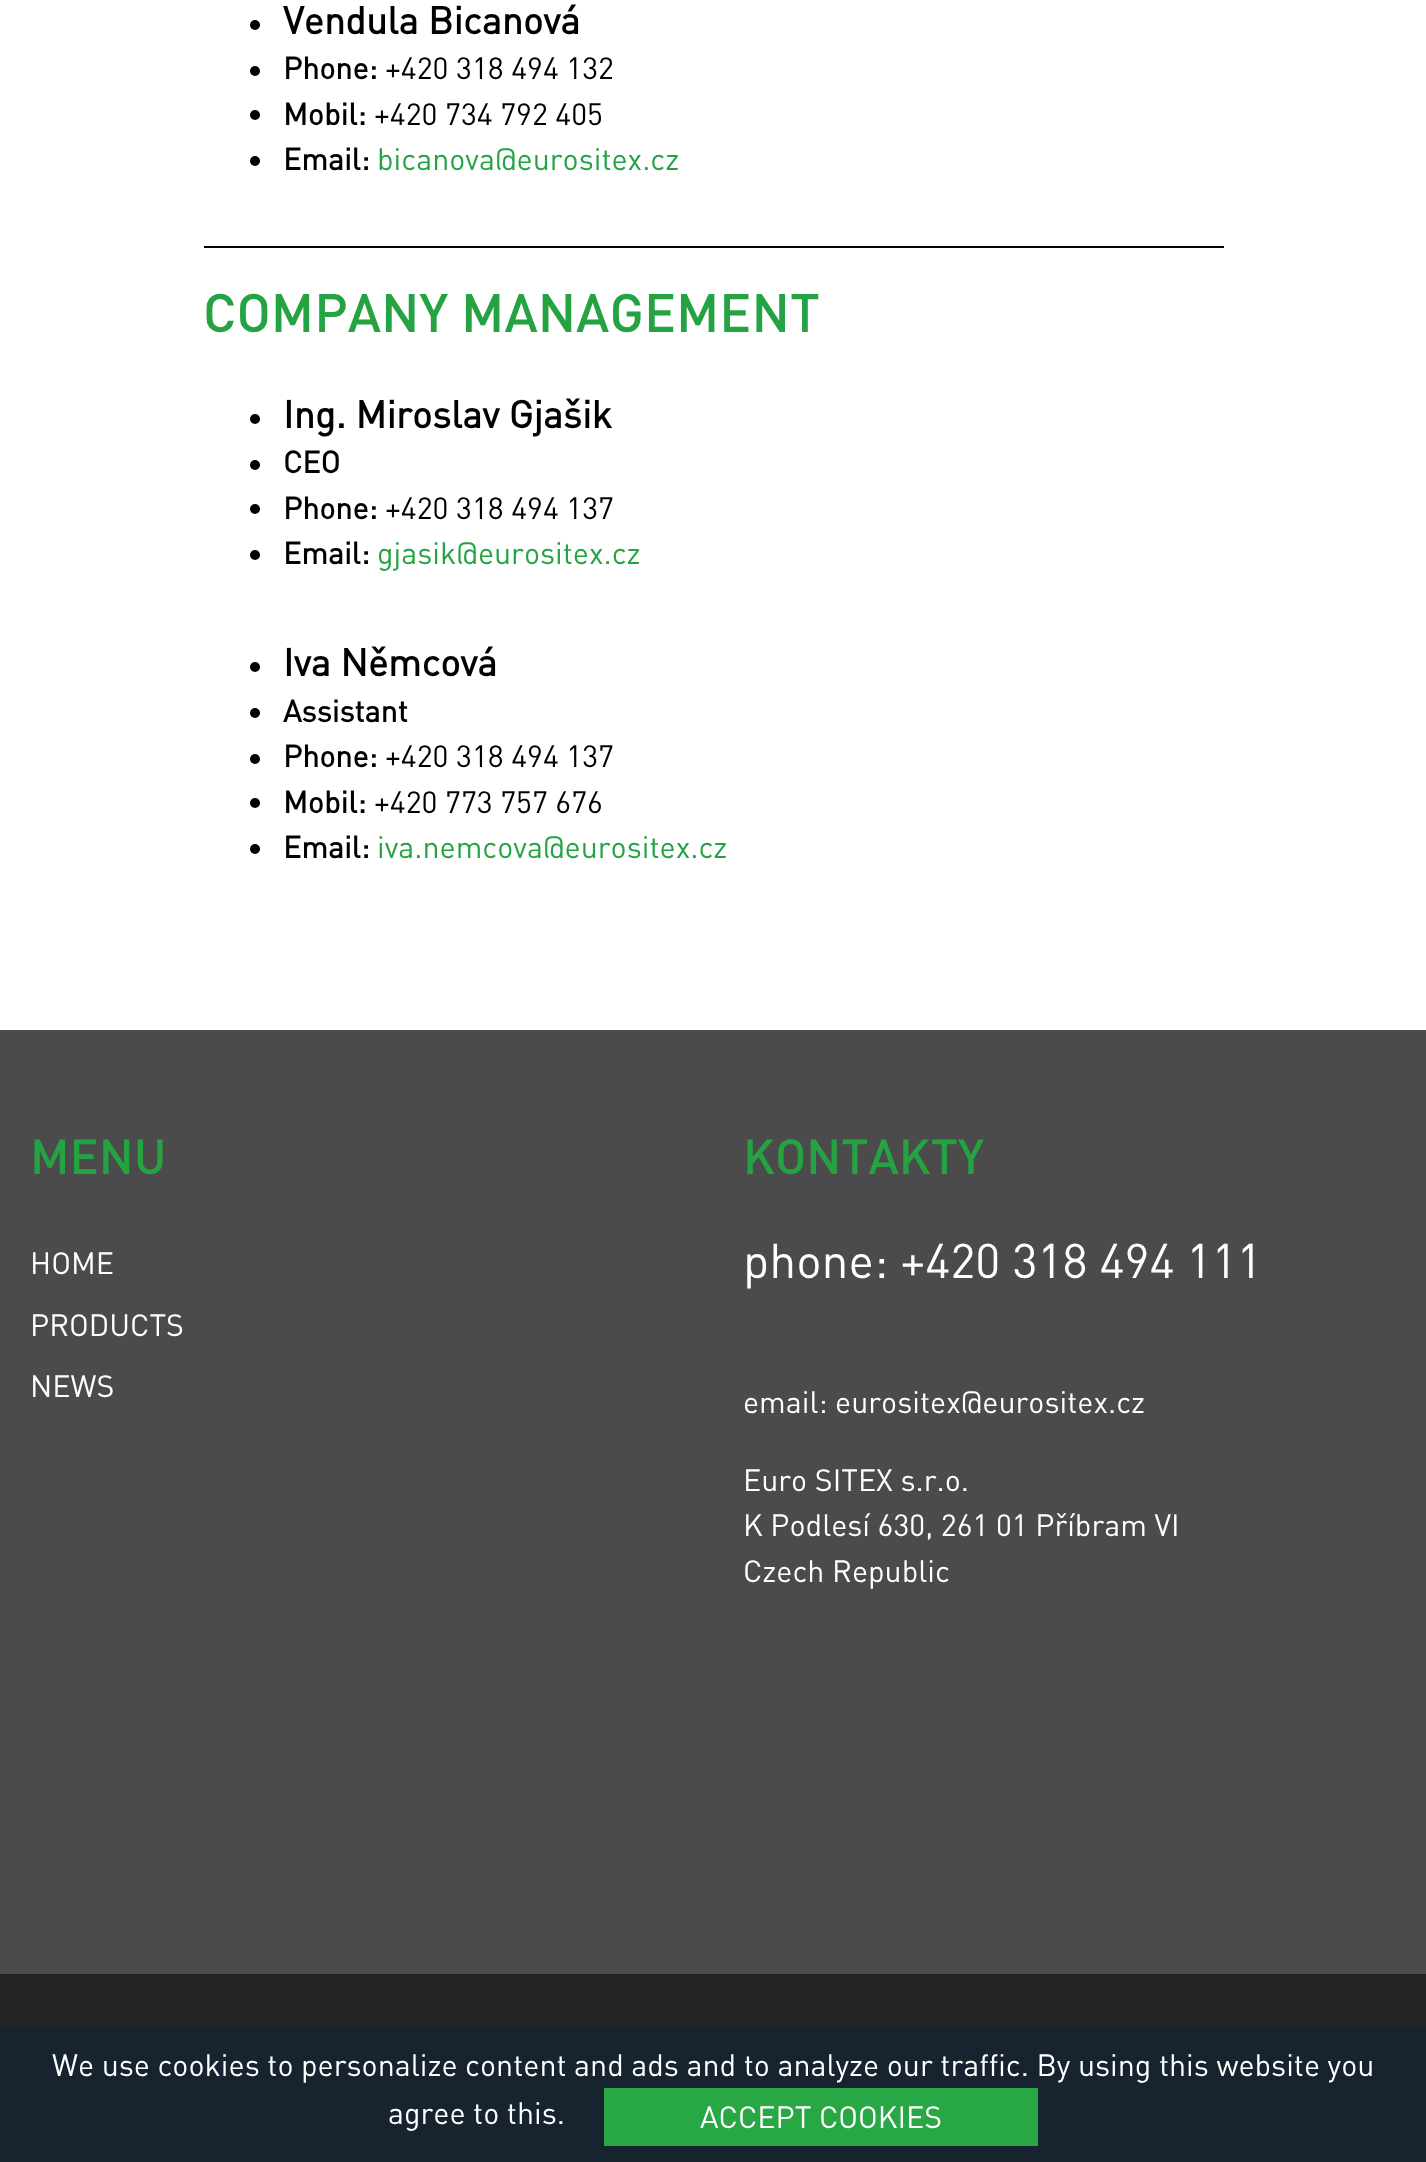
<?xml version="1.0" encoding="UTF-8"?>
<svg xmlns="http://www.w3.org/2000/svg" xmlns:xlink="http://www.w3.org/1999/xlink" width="1426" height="2162">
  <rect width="100%" height="100%" fill="#ffffff" />
  <circle cx="255" cy="25" r="5" fill="#000000" />
  <circle cx="255" cy="71" r="5" fill="#000000" />
  <circle cx="255" cy="115" r="5" fill="#000000" />
  <circle cx="255" cy="161" r="5" fill="#000000" />
  <rect x="204" y="246" width="1020" height="2" fill="#000000" />
  <circle cx="255" cy="419" r="5" fill="#000000" />
  <circle cx="255" cy="465" r="5" fill="#000000" />
  <circle cx="255" cy="509" r="5" fill="#000000" />
  <circle cx="255" cy="555" r="5" fill="#000000" />
  <circle cx="255" cy="667" r="5" fill="#000000" />
  <circle cx="255" cy="713" r="5" fill="#000000" />
  <circle cx="255" cy="759" r="5" fill="#000000" />
  <circle cx="255" cy="803" r="5" fill="#000000" />
  <circle cx="255" cy="849" r="5" fill="#000000" />
  <rect y="1030" width="1426" height="944" fill="#4b4b4b" />
  <rect y="1974" width="1426" height="52" fill="#242424" />
  <rect y="2026" width="1426" height="136" fill="#17232f" />
  <rect x="604" y="2088" width="434" height="58" fill="#28a745" />
  <text x="283" y="34" style="font-family: DIN; font-size: 38px; font-weight: bold; fill: #000000">Vendula Bicanová</text>
  <text x="283" y="79" style="font-family: DIN; font-size: 30.4px; font-weight: bold; fill: #000000">Phone:</text>
  <text x="385" y="79" style="font-family: DIN; font-size: 30.4px; fill: #000000">+420 318 494 132</text>
  <text x="283" y="125" style="font-family: DIN; font-size: 30.4px; font-weight: bold; fill: #000000">Mobil:</text>
  <text x="374" y="125" style="font-family: DIN; font-size: 30.4px; fill: #000000">+420 734 792 405</text>
  <text x="283" y="170" style="font-family: DIN; font-size: 30.4px; font-weight: bold; fill: #000000">Email:</text>
  <text x="377" y="170" style="font-family: DIN; font-size: 30.4px; fill: #25a343">bicanova@eurositex.cz</text>
  <text x="203" y="332" style="font-family: DIN; font-size: 53.25px; font-weight: 500; fill: #25a343">COMPANY MANAGEMENT</text>
  <text x="283" y="428" style="font-family: DIN; font-size: 38px; font-weight: bold; fill: #000000">Ing. Miroslav Gjašik</text>
  <text x="283" y="473" style="font-family: DIN; font-size: 30.4px; font-weight: bold; fill: #000000">CEO</text>
  <text x="283" y="519" style="font-family: DIN; font-size: 30.4px; font-weight: bold; fill: #000000">Phone:</text>
  <text x="385" y="519" style="font-family: DIN; font-size: 30.4px; fill: #000000">+420 318 494 137</text>
  <text x="283" y="564" style="font-family: DIN; font-size: 30.4px; font-weight: bold; fill: #000000">Email:</text>
  <text x="377" y="564" style="font-family: DIN; font-size: 30.4px; fill: #25a343">gjasik@eurositex.cz</text>
  <text x="283" y="676" style="font-family: DIN; font-size: 38px; font-weight: bold; fill: #000000">Iva Němcová</text>
  <text x="283" y="722" style="font-family: DIN; font-size: 30.4px; font-weight: bold; fill: #000000">Assistant</text>
  <text x="283" y="767" style="font-family: DIN; font-size: 30.4px; font-weight: bold; fill: #000000">Phone:</text>
  <text x="385" y="767" style="font-family: DIN; font-size: 30.4px; fill: #000000">+420 318 494 137</text>
  <text x="283" y="813" style="font-family: DIN; font-size: 30.4px; font-weight: bold; fill: #000000">Mobil:</text>
  <text x="374" y="813" style="font-family: DIN; font-size: 30.4px; fill: #000000">+420 773 757 676</text>
  <text x="283" y="858" style="font-family: DIN; font-size: 30.4px; font-weight: bold; fill: #000000">Email:</text>
  <text x="377" y="858" style="font-family: DIN; font-size: 30.4px; fill: #25a343">iva.nemcova@eurositex.cz</text>
  <text x="30" y="1174" style="font-family: DIN; font-size: 48.5px; font-weight: 500; fill: #25a343">MENU</text>
  <text x="30" y="1274" style="font-family: DIN; font-size: 30.4px; fill: #ffffff">HOME</text>
  <text x="30" y="1336" style="font-family: DIN; font-size: 30.4px; fill: #ffffff">PRODUCTS</text>
  <text x="30" y="1397" style="font-family: DIN; font-size: 30.4px; fill: #ffffff">NEWS</text>
  <text x="743" y="1174" style="font-family: DIN; font-size: 48.5px; font-weight: 500; fill: #25a343">KONTAKTY</text>
  <text x="743" y="1278" style="font-family: DIN; font-size: 48px; fill: #ffffff">phone: +420 318 494 111</text>
  <text x="743" y="1413" style="font-family: DIN; font-size: 30.4px; fill: #ffffff">email: eurositex@eurositex.cz</text>
  <text x="743" y="1491" style="font-family: DIN; font-size: 30.4px; fill: #ffffff">Euro SITEX s.r.o.</text>
  <text x="743" y="1536" style="font-family: DIN; font-size: 30.4px; fill: #ffffff">K Podlesí 630, 261 01 Příbram VI</text>
  <text x="743" y="1582" style="font-family: DIN; font-size: 30.4px; fill: #ffffff">Czech Republic</text>
  <text x="52" y="2076" style="font-family: DIN; font-size: 30.4px; fill: #ffffff">We use cookies to personalize content and ads and to analyze our traffic. By using this website you</text>
  <text x="388" y="2124" style="font-family: DIN; font-size: 30.4px; fill: #ffffff">agree to this.</text>
  <text x="700" y="2128" style="font-family: DIN; font-size: 30.4px; fill: #ffffff">ACCEPT COOKIES</text>
</svg>
